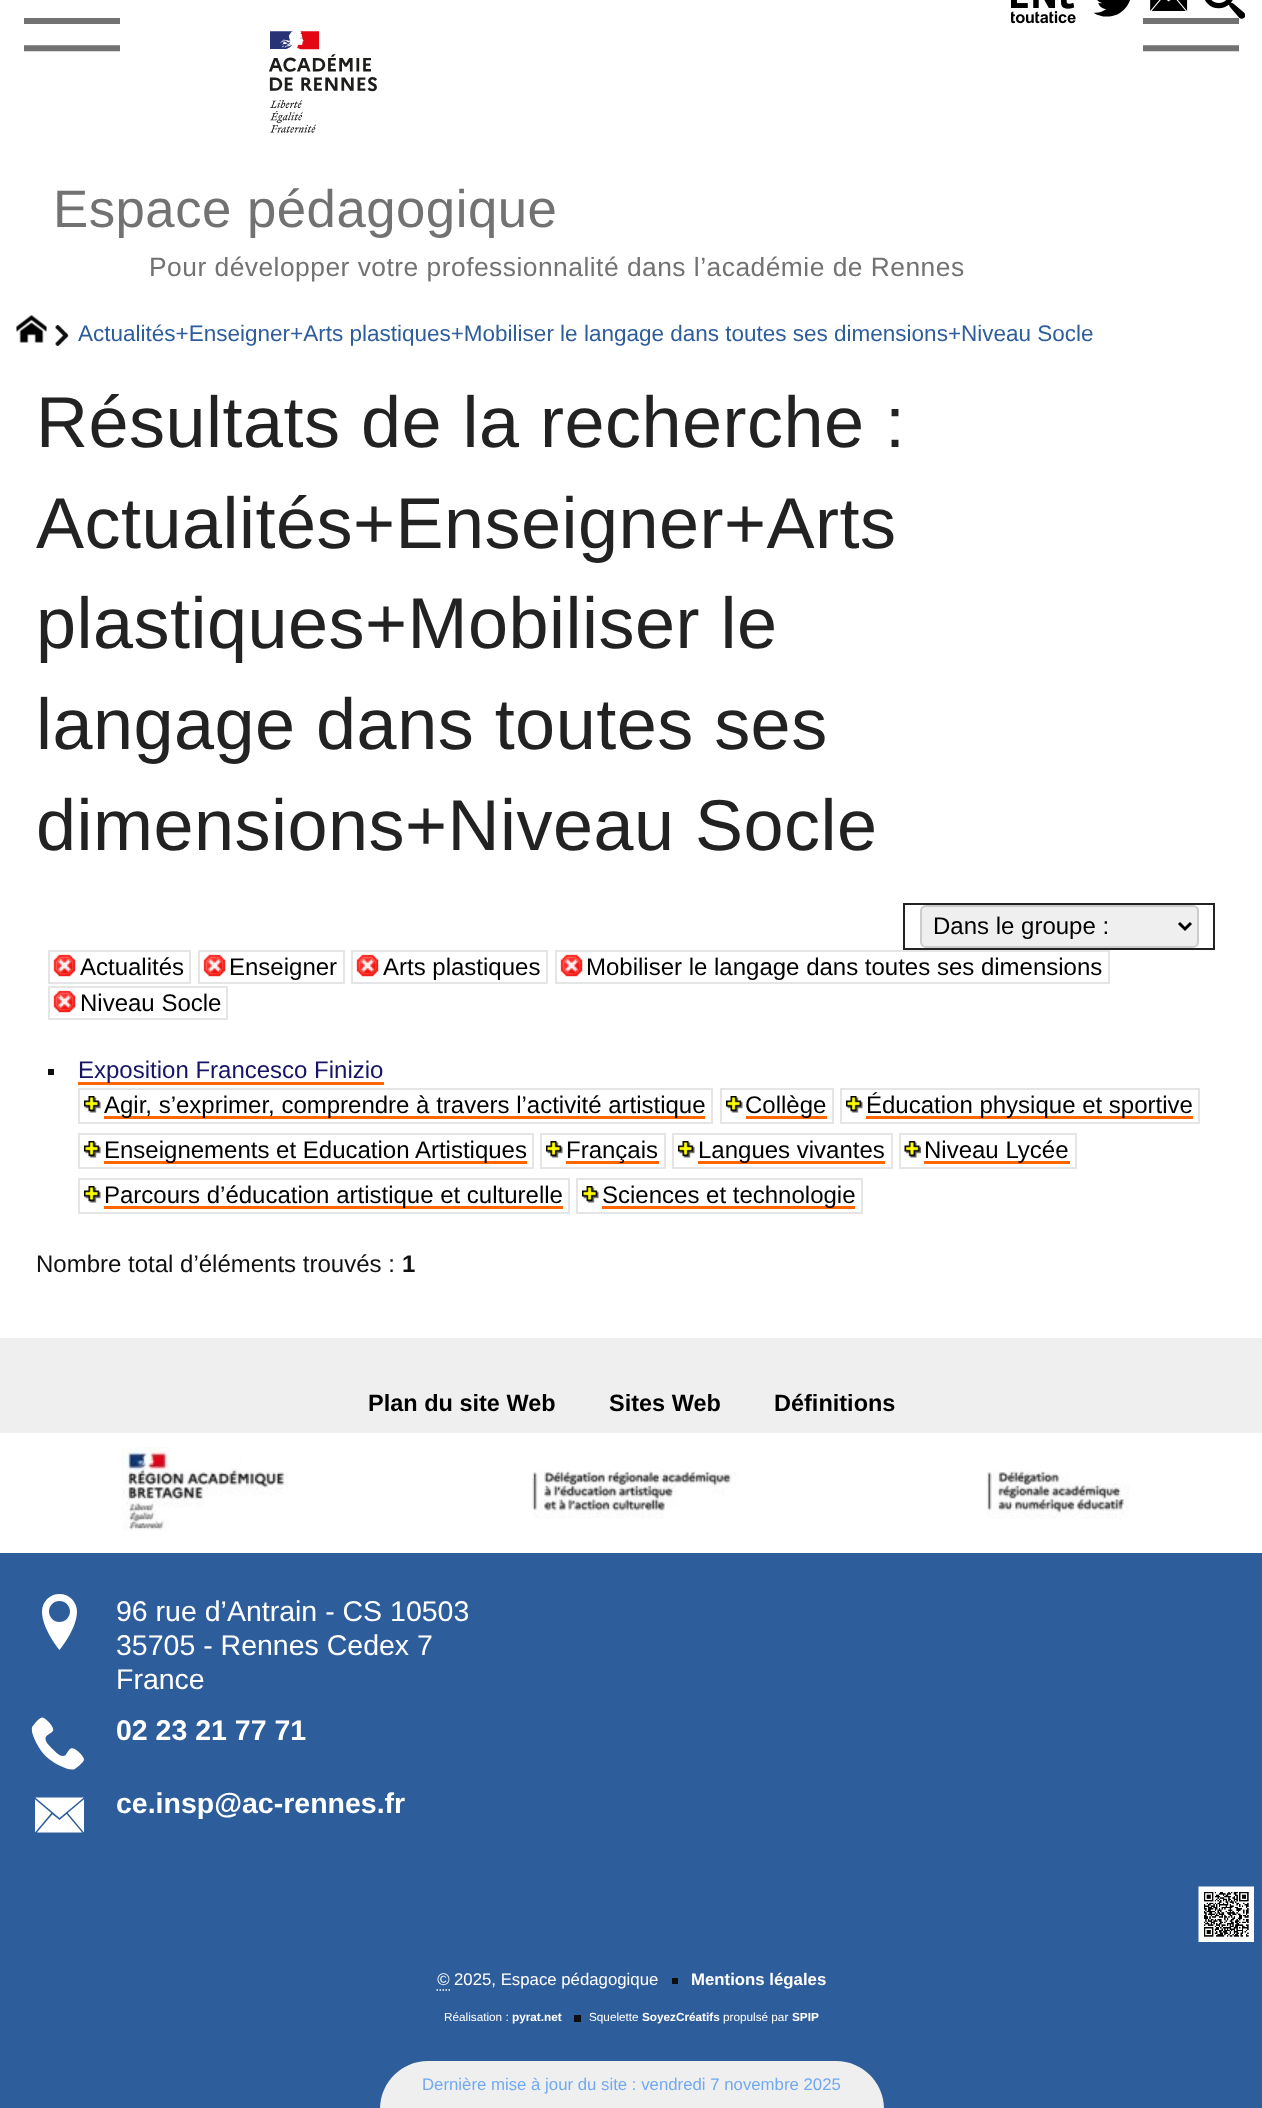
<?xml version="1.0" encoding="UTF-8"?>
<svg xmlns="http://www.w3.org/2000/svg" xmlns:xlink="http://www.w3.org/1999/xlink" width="1262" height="2108">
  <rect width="100%" height="100%" fill="#ffffff" />
  <image x="1011" y="0" width="65" height="24" xlink:href="image1.png" />
  <image x="1094" y="0" width="36" height="17" xlink:href="image2.png" />
  <image x="1150" y="0" width="38" height="11" xlink:href="image3.png" />
  <image x="1143" y="18" width="96" height="34" xlink:href="image5.png" />
  <image x="1205" y="0" width="40" height="19" xlink:href="image4.png" />
  <image x="24" y="18" width="96" height="34" xlink:href="image5.png" />
  <image x="269" y="31" width="108" height="102" xlink:href="image6.png" />
  <image x="55" y="325" width="14" height="21" xlink:href="image7.png" />
  <image x="16" y="315" width="31" height="28" xlink:href="image8.png" />
  <rect x="904" y="904" width="310" height="45" fill="none" stroke="#222222" stroke-width="2" />
  <rect x="921" y="906" width="277" height="41" rx="5" fill="#efefef" stroke="#cccccc" stroke-width="2" />
  <path d="M 1179 923 l 6 6 l 6 -6" fill="none" stroke="#000000" stroke-width="3" />
  <image x="53" y="954" width="23" height="23" xlink:href="image9.png" />
  <rect x="49" y="951" width="141" height="32" fill="none" stroke="#e5e5e5" stroke-width="2" />
  <image x="203" y="954" width="23" height="23" xlink:href="image9.png" />
  <rect x="199" y="951" width="145" height="32" fill="none" stroke="#e5e5e5" stroke-width="2" />
  <image x="356" y="954" width="23" height="23" xlink:href="image10.png" />
  <rect x="352" y="951" width="195" height="32" fill="none" stroke="#e5e5e5" stroke-width="2" />
  <image x="560" y="954" width="23" height="23" xlink:href="image10.png" />
  <rect x="556" y="951" width="553" height="32" fill="none" stroke="#e5e5e5" stroke-width="2" />
  <image x="53" y="990" width="23" height="23" xlink:href="image9.png" />
  <rect x="49" y="987" width="178" height="32" fill="none" stroke="#e5e5e5" stroke-width="2" />
  <rect x="48" y="1069" width="6" height="6" fill="#0e0e0e" />
  <rect x="78" y="1082" width="306" height="3" fill="#ff6600" />
  <image x="84" y="1096" width="17" height="17" xlink:href="image11.png" />
  <rect x="79" y="1089" width="633" height="34" fill="none" stroke="#e5e5e5" stroke-width="2" />
  <rect x="104" y="1116" width="601" height="3" fill="#ff6600" />
  <image x="726" y="1096" width="17" height="17" xlink:href="image12.png" />
  <rect x="721" y="1089" width="112" height="34" fill="none" stroke="#e5e5e5" stroke-width="2" />
  <rect x="746" y="1116" width="81" height="3" fill="#ff6600" />
  <image x="846" y="1096" width="17" height="17" xlink:href="image11.png" />
  <rect x="841" y="1089" width="358" height="34" fill="none" stroke="#e5e5e5" stroke-width="2" />
  <rect x="866" y="1116" width="327" height="3" fill="#ff6600" />
  <image x="84" y="1141" width="17" height="17" xlink:href="image11.png" />
  <rect x="79" y="1134" width="454" height="34" fill="none" stroke="#e5e5e5" stroke-width="2" />
  <rect x="104" y="1161" width="423" height="3" fill="#ff6600" />
  <image x="546" y="1141" width="17" height="17" xlink:href="image11.png" />
  <rect x="541" y="1134" width="124" height="34" fill="none" stroke="#e5e5e5" stroke-width="2" />
  <rect x="566" y="1161" width="93" height="3" fill="#ff6600" />
  <image x="678" y="1141" width="17" height="17" xlink:href="image11.png" />
  <rect x="673" y="1134" width="219" height="34" fill="none" stroke="#e5e5e5" stroke-width="2" />
  <rect x="698" y="1161" width="187" height="3" fill="#ff6600" />
  <image x="904" y="1141" width="17" height="17" xlink:href="image13.png" />
  <rect x="900" y="1134" width="176" height="34" fill="none" stroke="#e5e5e5" stroke-width="2" />
  <rect x="924" y="1161" width="146" height="3" fill="#ff6600" />
  <image x="84" y="1186" width="17" height="17" xlink:href="image11.png" />
  <rect x="79" y="1179" width="490" height="34" fill="none" stroke="#e5e5e5" stroke-width="2" />
  <rect x="104" y="1206" width="459" height="3" fill="#ff6600" />
  <image x="582" y="1186" width="17" height="17" xlink:href="image12.png" />
  <rect x="577" y="1179" width="285" height="34" fill="none" stroke="#e5e5e5" stroke-width="2" />
  <rect x="602" y="1206" width="253" height="3" fill="#ff6600" />
  <rect y="1338" width="1262" height="95" fill="#efefef" />
  <rect y="1553" width="1262" height="555" fill="#2e5d9b" />
  <image x="121" y="1447" width="167" height="84" xlink:href="image14.png" />
  <image x="532" y="1471" width="205" height="48" xlink:href="image15.png" />
  <image x="986" y="1471" width="144" height="48" xlink:href="image16.png" />
  <image x="42" y="1594" width="35" height="56" xlink:href="image17.png" />
  <image x="31" y="1717" width="53" height="53" xlink:href="image18.png" />
  <image x="35" y="1797" width="49" height="36" xlink:href="image19.png" />
  <image x="1198" y="1886" width="56" height="56" xlink:href="image20.png" />
  <path d="M 436.5 1990 h 13.5" fill="none" stroke="#ffffff" stroke-width="1.5" stroke-dasharray="1.5 1.5" />
  <rect x="672" y="1978" width="6" height="6" fill="#0e0e0e" />
  <rect x="574" y="2015" width="7" height="7" fill="#0e0e0e" />
  <path d="M 428 2061 h 408 c 26.5 0 48 21.5 48 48 h -504 c 0 -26.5 21.5 -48 48 -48 z" fill="#efefef" />
  <text x="53" y="227" style="font-family: Liberation Sans; font-size: 52.75px; letter-spacing: 0.48px; fill: #727272">Espace pédagogique</text>
  <text x="149" y="276" style="font-family: Liberation Sans; font-size: 26.4px; letter-spacing: 0.48px; fill: #727272">Pour développer votre professionnalité dans l’académie de Rennes</text>
  <text x="78" y="341" style="font-family: Liberation Sans; font-size: 22.5px; fill: #2e5d9b">Actualités+Enseigner+Arts plastiques+Mobiliser le langage dans toutes ses dimensions+Niveau Socle</text>
  <text x="36" y="447" style="font-family: Liberation Sans; font-size: 72px; letter-spacing: 0.48px; fill: #222222">Résultats de la recherche :</text>
  <text x="36" y="548" style="font-family: Liberation Sans; font-size: 72px; letter-spacing: 0.48px; fill: #222222">Actualités+Enseigner+Arts</text>
  <text x="36" y="648" style="font-family: Liberation Sans; font-size: 72px; letter-spacing: 0.48px; fill: #222222">plastiques+Mobiliser le</text>
  <text x="36" y="749" style="font-family: Liberation Sans; font-size: 72px; letter-spacing: 0.48px; fill: #222222">langage dans toutes ses</text>
  <text x="36" y="850" style="font-family: Liberation Sans; font-size: 72px; letter-spacing: 0.48px; fill: #222222">dimensions+Niveau Socle</text>
  <text x="933" y="934" style="font-family: Liberation Sans; font-size: 24px; fill: #000000">Dans le groupe :</text>
  <text x="80" y="975" style="font-family: Liberation Sans; font-size: 24px; fill: #000000">Actualités</text>
  <text x="229" y="975" style="font-family: Liberation Sans; font-size: 24px; fill: #000000">Enseigner</text>
  <text x="383" y="975" style="font-family: Liberation Sans; font-size: 24px; fill: #000000">Arts plastiques</text>
  <text x="586" y="975" style="font-family: Liberation Sans; font-size: 24px; fill: #000000">Mobiliser le langage dans toutes ses dimensions</text>
  <text x="80" y="1011" style="font-family: Liberation Sans; font-size: 24px; fill: #000000">Niveau Socle</text>
  <text x="78" y="1078" style="font-family: Liberation Sans; font-size: 24px; fill: #171466">Exposition Francesco Finizio</text>
  <text x="104" y="1113" style="font-family: Liberation Sans; font-size: 24px; fill: #000000">Agir, s’exprimer, comprendre à travers l’activité artistique</text>
  <text x="745" y="1113" style="font-family: Liberation Sans; font-size: 24px; fill: #000000">Collège</text>
  <text x="866" y="1113" style="font-family: Liberation Sans; font-size: 24px; fill: #000000">Éducation physique et sportive</text>
  <text x="104" y="1158" style="font-family: Liberation Sans; font-size: 24px; fill: #000000">Enseignements et Education Artistiques</text>
  <text x="566" y="1158" style="font-family: Liberation Sans; font-size: 24px; fill: #000000">Français</text>
  <text x="698" y="1158" style="font-family: Liberation Sans; font-size: 24px; fill: #000000">Langues vivantes</text>
  <text x="924" y="1158" style="font-family: Liberation Sans; font-size: 24px; fill: #000000">Niveau Lycée</text>
  <text x="104" y="1203" style="font-family: Liberation Sans; font-size: 24px; fill: #000000">Parcours d’éducation artistique et culturelle</text>
  <text x="602" y="1203" style="font-family: Liberation Sans; font-size: 24px; fill: #000000">Sciences et technologie</text>
  <text x="36" y="1272" style="font-family: Liberation Sans; font-size: 24px; fill: #111111">Nombre total d’éléments trouvés :</text>
  <text x="402" y="1272" style="font-family: Liberation Sans; font-size: 24px; font-weight: bold; fill: #111111">1</text>
  <text x="368" y="1411" style="font-family: Liberation Sans; font-size: 23.5px; font-weight: bold; fill: #000000">Plan du site Web</text>
  <text x="609" y="1411" style="font-family: Liberation Sans; font-size: 23.5px; font-weight: bold; fill: #000000">Sites Web</text>
  <text x="774" y="1411" style="font-family: Liberation Sans; font-size: 23.5px; font-weight: bold; fill: #000000">Définitions</text>
  <text x="116" y="1621" style="font-family: Liberation Sans; font-size: 28.5px; fill: #ffffff">96 rue d’Antrain - CS 10503</text>
  <text x="116" y="1655" style="font-family: Liberation Sans; font-size: 28.5px; fill: #ffffff">35705 - Rennes Cedex 7</text>
  <text x="116" y="1689" style="font-family: Liberation Sans; font-size: 28.5px; fill: #ffffff">France</text>
  <text x="116" y="1740" style="font-family: Liberation Sans; font-size: 28.5px; font-weight: bold; fill: #ffffff">02 23 21 77 71</text>
  <text x="116" y="1813" style="font-family: Liberation Sans; font-size: 28.5px; font-weight: bold; fill: #ffffff">ce.insp@ac-rennes.fr</text>
  <text x="437" y="1985" style="font-family: Liberation Sans; font-size: 16.8px; font-style: italic; fill: #ffffff">©</text>
  <text x="454" y="1985" style="font-family: Liberation Sans; font-size: 16.8px; fill: #ffffff">2025, Espace pédagogique</text>
  <text x="691" y="1985" style="font-family: Liberation Sans; font-size: 16.8px; font-weight: bold; fill: #ffffff">Mentions légales</text>
  <text x="444" y="2021" style="font-family: Liberation Sans; font-size: 11.75px; fill: #ffffff">Réalisation :</text>
  <text x="512" y="2021" style="font-family: Liberation Sans; font-size: 11.75px; font-weight: bold; fill: #ffffff">pyrat.net</text>
  <text x="589" y="2021" style="font-family: Liberation Sans; font-size: 11.75px; fill: #ffffff">Squelette</text>
  <text x="642" y="2021" style="font-family: Liberation Sans; font-size: 11.75px; font-weight: bold; fill: #ffffff">SoyezCréatifs</text>
  <text x="723" y="2021" style="font-family: Liberation Sans; font-size: 11.75px; fill: #ffffff">propulsé par</text>
  <text x="792" y="2021" style="font-family: Liberation Sans; font-size: 11.75px; font-weight: bold; fill: #ffffff">SPIP</text>
  <text x="422" y="2090" style="font-family: Liberation Sans; font-size: 16.8px; fill: #71a9f2">Dernière mise à jour du site : vendredi 7 novembre 2025</text>
</svg>
